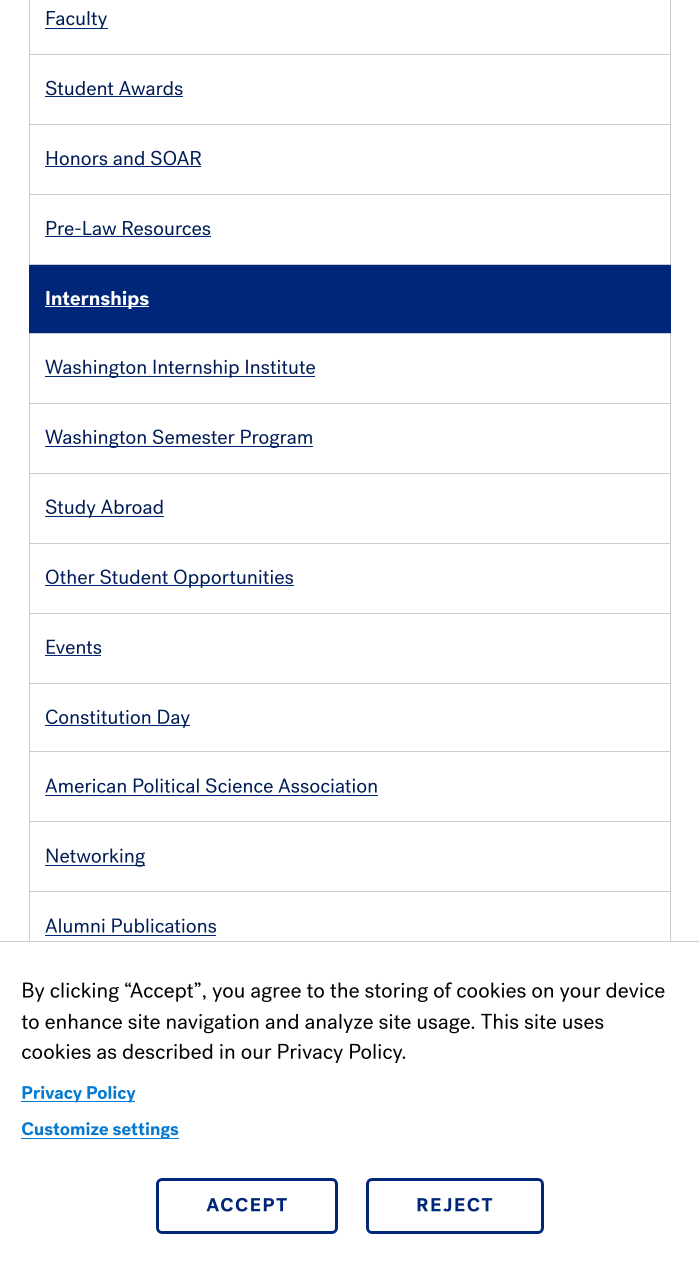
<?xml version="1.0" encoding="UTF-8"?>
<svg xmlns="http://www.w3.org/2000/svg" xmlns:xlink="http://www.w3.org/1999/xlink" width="699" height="1267">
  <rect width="100%" height="100%" fill="#ffffff" />
  <rect x="29.5" y="-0.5" width="641" height="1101" fill="none" stroke="#cccccc" />
  <rect x="45" y="28" width="63" height="1" fill="#00267a" />
  <image x="46" y="11" width="61" height="18" xlink:href="image1.png" />
  <rect x="29" y="54" width="642" height="1" fill="#cccccc" />
  <image x="46" y="80" width="137" height="16" xlink:href="image2.png" />
  <rect x="45" y="96" width="138" height="1" fill="#00267a" />
  <rect x="29" y="124" width="642" height="1" fill="#cccccc" />
  <image x="46" y="150" width="156" height="16" xlink:href="image3.png" />
  <rect x="45" y="166" width="156" height="1" fill="#00267a" />
  <rect x="29" y="194" width="642" height="1" fill="#cccccc" />
  <image x="46" y="221" width="165" height="15" xlink:href="image4.png" />
  <rect x="45" y="236" width="166" height="1" fill="#00267a" />
  <rect x="29" y="265" width="642" height="68" fill="#00267a" />
  <rect x="29" y="264" width="642" height="1" fill="#cccccc" />
  <rect x="45" y="306" width="104" height="1" fill="#ffffff" />
  <image x="46" y="290" width="103" height="19" xlink:href="image5.png" />
  <rect x="29" y="333" width="642" height="1" fill="#cccccc" />
  <rect x="45" y="376" width="270" height="1" fill="#00267a" />
  <image x="45" y="359" width="270" height="19" xlink:href="image6.png" />
  <rect x="29" y="403" width="642" height="1" fill="#cccccc" />
  <rect x="45" y="446" width="268" height="1" fill="#00267a" />
  <image x="45" y="429" width="267" height="19" xlink:href="image7.png" />
  <rect x="29" y="473" width="642" height="1" fill="#cccccc" />
  <rect x="45" y="516" width="119" height="1" fill="#00267a" />
  <image x="46" y="499" width="117" height="19" xlink:href="image8.png" />
  <rect x="29" y="543" width="642" height="1" fill="#cccccc" />
  <rect x="45" y="585" width="249" height="1" fill="#00267a" />
  <image x="46" y="569" width="247" height="19" xlink:href="image9.png" />
  <rect x="29" y="613" width="642" height="1" fill="#cccccc" />
  <image x="46" y="639" width="56" height="15" xlink:href="image10.png" />
  <rect x="45" y="655" width="56" height="1" fill="#00267a" />
  <rect x="29" y="683" width="642" height="1" fill="#cccccc" />
  <rect x="45" y="725" width="145" height="1" fill="#00267a" />
  <image x="46" y="709" width="144" height="19" xlink:href="image11.png" />
  <rect x="29" y="751" width="642" height="1" fill="#cccccc" />
  <image x="45" y="778" width="332" height="15" xlink:href="image12.png" />
  <rect x="45" y="795" width="333" height="1" fill="#00267a" />
  <rect x="29" y="821" width="642" height="1" fill="#cccccc" />
  <rect x="45" y="865" width="100" height="1" fill="#00267a" />
  <image x="46" y="848" width="99" height="19" xlink:href="image13.png" />
  <rect x="29" y="891" width="642" height="1" fill="#cccccc" />
  <image x="45" y="918" width="172" height="15" xlink:href="image14.png" />
  <rect x="45" y="935" width="171" height="1" fill="#00267a" />
  <rect x="29" y="942" width="642" height="159" fill="#ffffff" />
  <rect y="941" width="699" height="1" fill="#cccccc" />
  <image x="23" y="982" width="642" height="20" xlink:href="image15.png" />
  <image x="21" y="1013" width="583" height="21" xlink:href="image16.png" />
  <image x="22" y="1043" width="384" height="20" xlink:href="image17.png" />
  <rect x="21" y="1101" width="114" height="1" fill="#0679d0" />
  <image x="22" y="1085" width="114" height="18" xlink:href="image18.png" />
  <image x="22" y="1122" width="157" height="16" xlink:href="image19.png" />
  <rect x="21" y="1138" width="158" height="1" fill="#0679d0" />
  <rect x="157.5" y="1179.5" width="179" height="53" rx="4.5" fill="none" stroke="#00267a" stroke-width="3" />
  <image x="206" y="1197" width="81" height="15" xlink:href="image20.png" />
  <rect x="367.5" y="1179.5" width="175" height="53" rx="4.5" fill="none" stroke="#00267a" stroke-width="3" />
  <image x="417" y="1197" width="76" height="15" xlink:href="image21.png" />
</svg>
